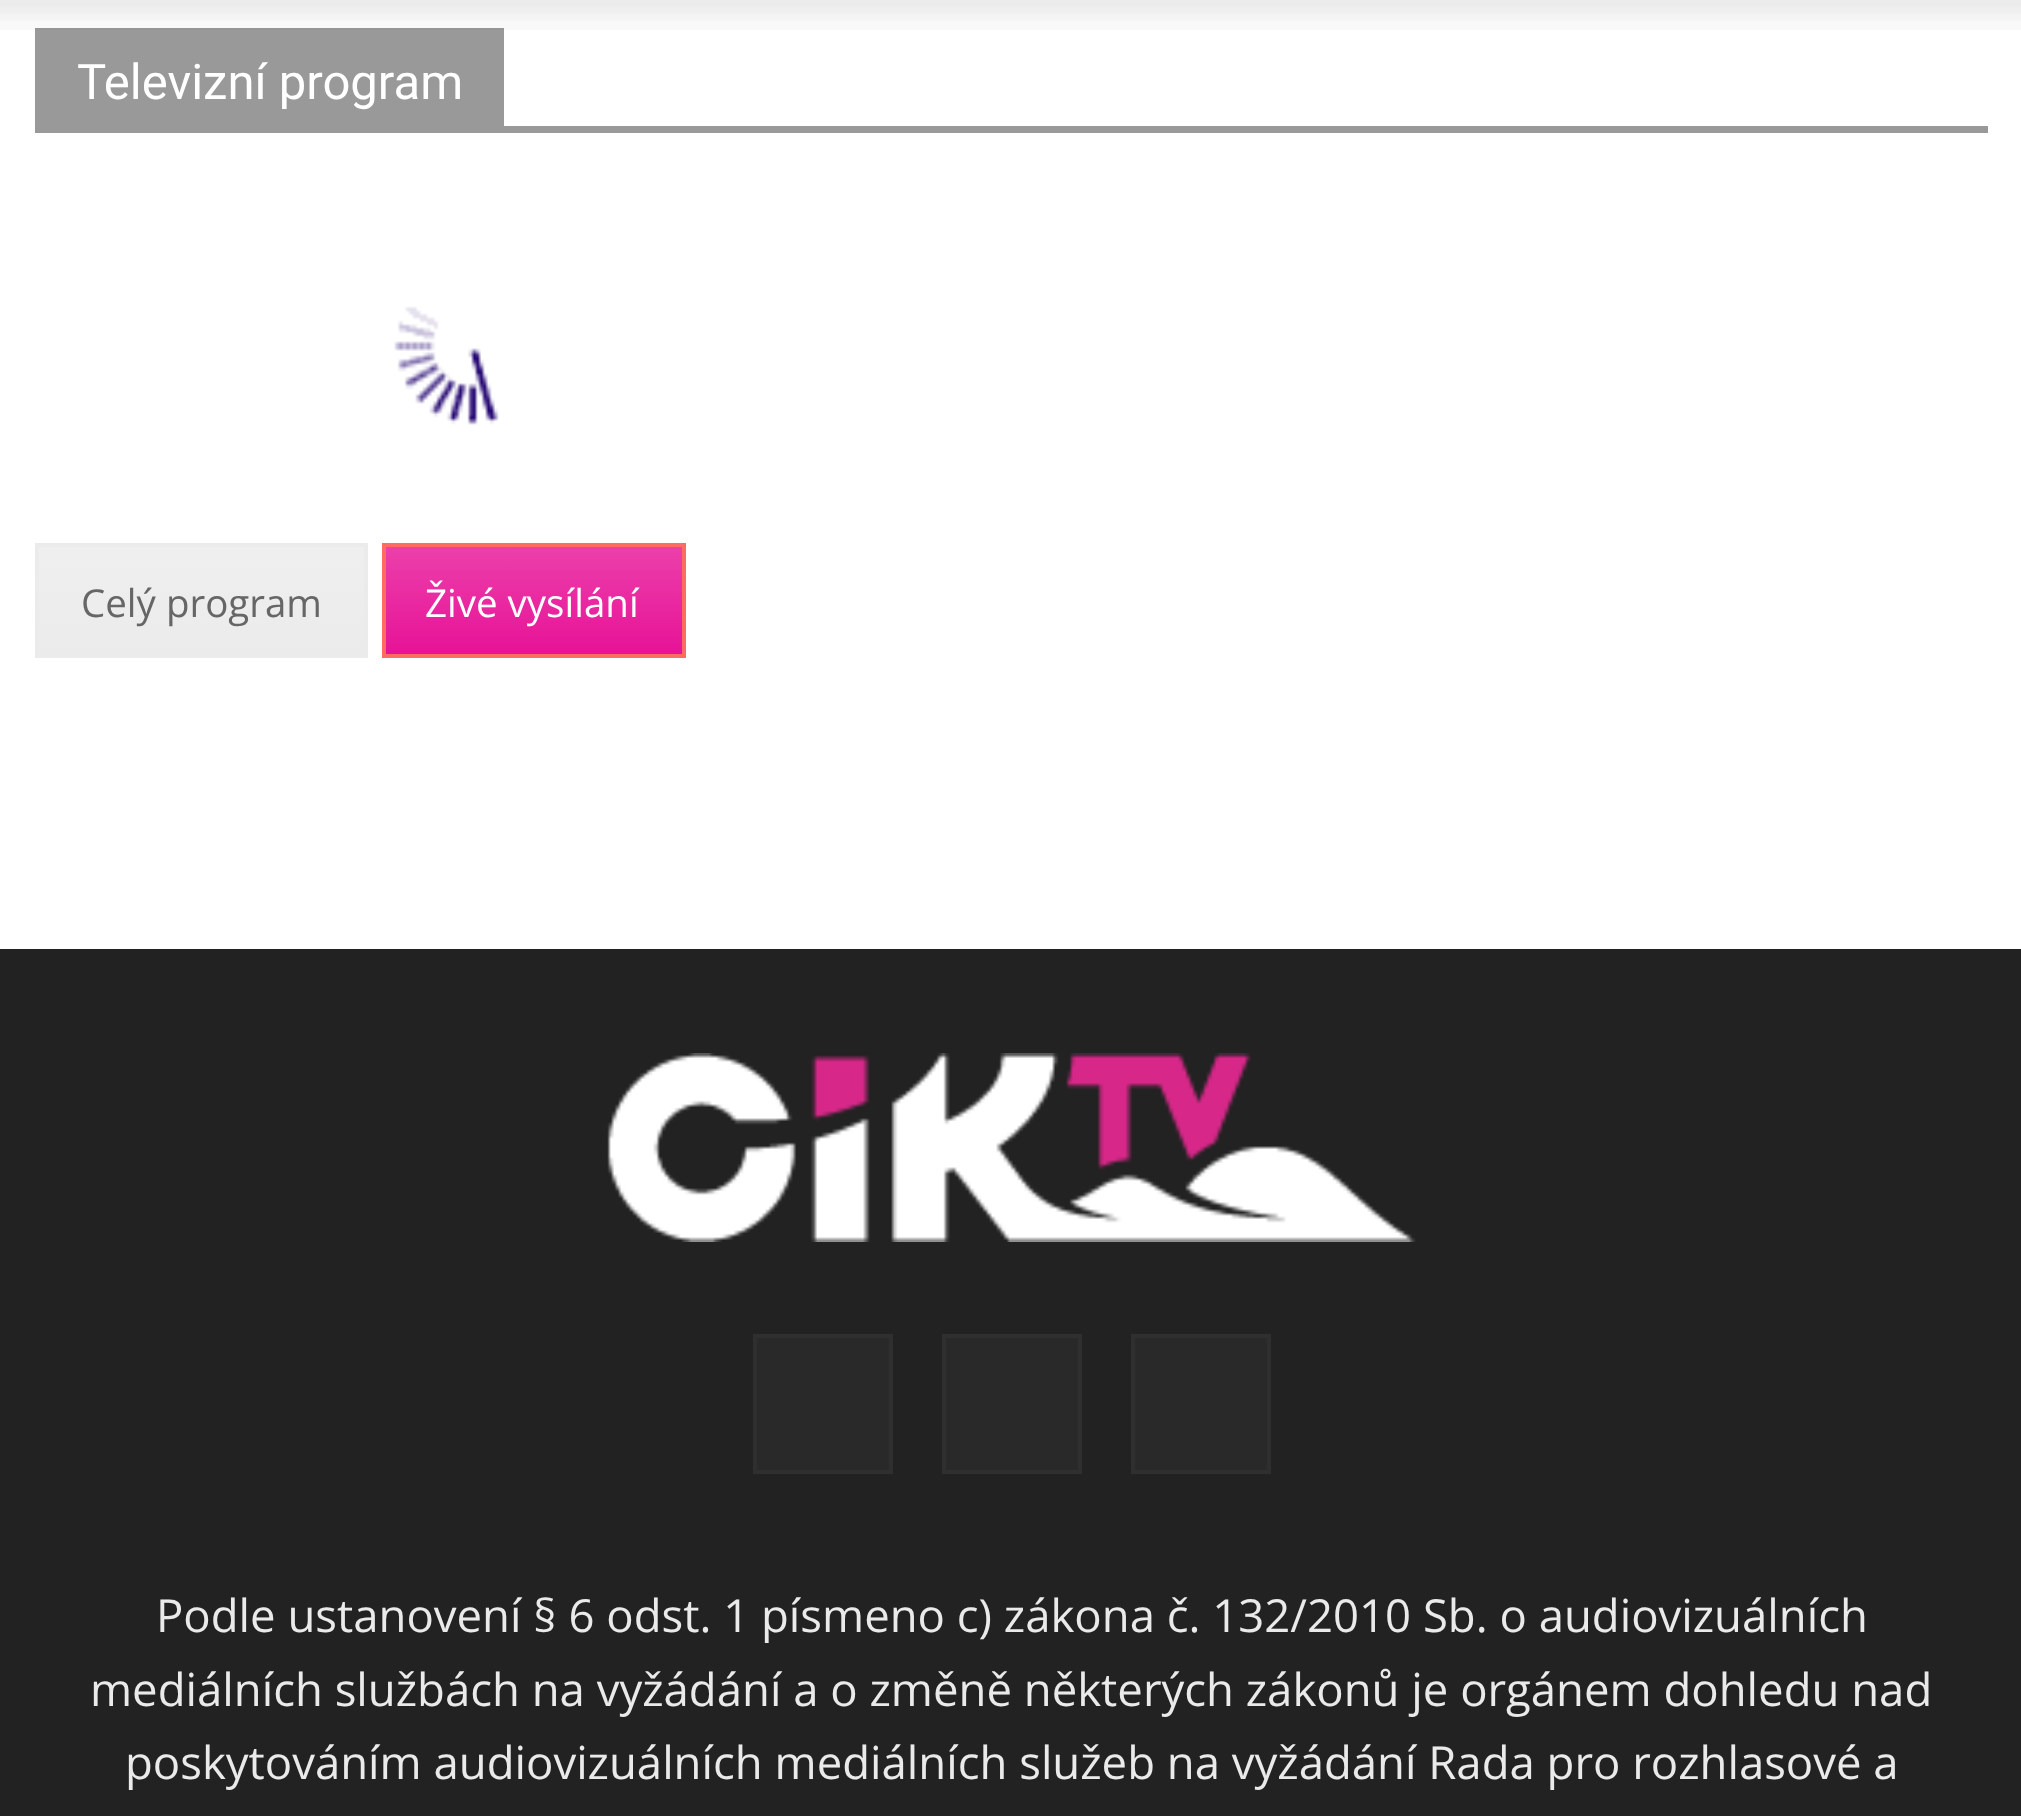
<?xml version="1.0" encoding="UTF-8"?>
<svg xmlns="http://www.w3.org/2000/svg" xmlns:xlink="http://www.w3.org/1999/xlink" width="2021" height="1816">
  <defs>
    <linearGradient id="g1" gradientUnits="userSpaceOnUse" x1="201" y1="546" x2="201" y2="655"><stop offset="0" stop-color="#efefef" /><stop offset="1" stop-color="#ebebeb" /></linearGradient>
    <linearGradient id="g2" gradientUnits="userSpaceOnUse" x1="534" y1="546" x2="534" y2="655"><stop offset="0" stop-color="#ec40ab" /><stop offset="1" stop-color="#e71297" /></linearGradient>
  </defs>
  <rect width="100%" height="100%" fill="#ffffff" />
  <rect x="35" y="28" width="469" height="98" fill="#999999" />
  <image x="0" y="0" width="2021" height="30" xlink:href="image1.png" />
  <rect x="35" y="126" width="1953" height="7" fill="#999999" />
  <image x="394" y="306" width="105" height="119" xlink:href="image2.png" />
  <rect x="39" y="547" width="325" height="107" fill="url(#g1)" />
  <rect x="37" y="545" width="329" height="111" fill="none" stroke="#ebebeb" stroke-width="4" />
  <rect x="386" y="547" width="296" height="107" fill="url(#g2)" />
  <rect x="384" y="545" width="300" height="111" fill="none" stroke="#fe6c61" stroke-width="4" />
  <rect y="949" width="2021" height="867" fill="#222222" />
  <image x="607" y="1053" width="809" height="189" xlink:href="image3.png" />
  <rect x="755" y="1336" width="136" height="136" fill="#292929" stroke="#2f2f2f" stroke-width="4" />
  <rect x="944" y="1336" width="136" height="136" fill="#292929" stroke="#2f2f2f" stroke-width="4" />
  <rect x="1133" y="1336" width="136" height="136" fill="#292929" stroke="#2f2f2f" stroke-width="4" />
  <text x="77" y="99" style="font-family: Roboto; font-size: 49px; fill: #ffffff">Televizní program</text>
  <text x="81" y="617" style="font-family: Open Sans; font-size: 38.5px; fill: #666666">Celý program</text>
  <text x="425" y="617" style="font-family: Open Sans; font-size: 38.5px; fill: #ffffff">Živé vysílání</text>
  <text x="156" y="1632" style="font-family: Open Sans; font-size: 45.5px; fill: #eaeaea">Podle ustanovení § 6 odst. 1 písmeno c) zákona č. 132/2010 Sb. o audiovizuálních</text>
  <text x="90" y="1706" style="font-family: Open Sans; font-size: 45.5px; fill: #eaeaea">mediálních službách na vyžádání a o změně některých zákonů je orgánem dohledu nad</text>
  <text x="125" y="1779" style="font-family: Open Sans; font-size: 45.5px; fill: #eaeaea">poskytováním audiovizuálních mediálních služeb na vyžádání Rada pro rozhlasové a</text>
</svg>
